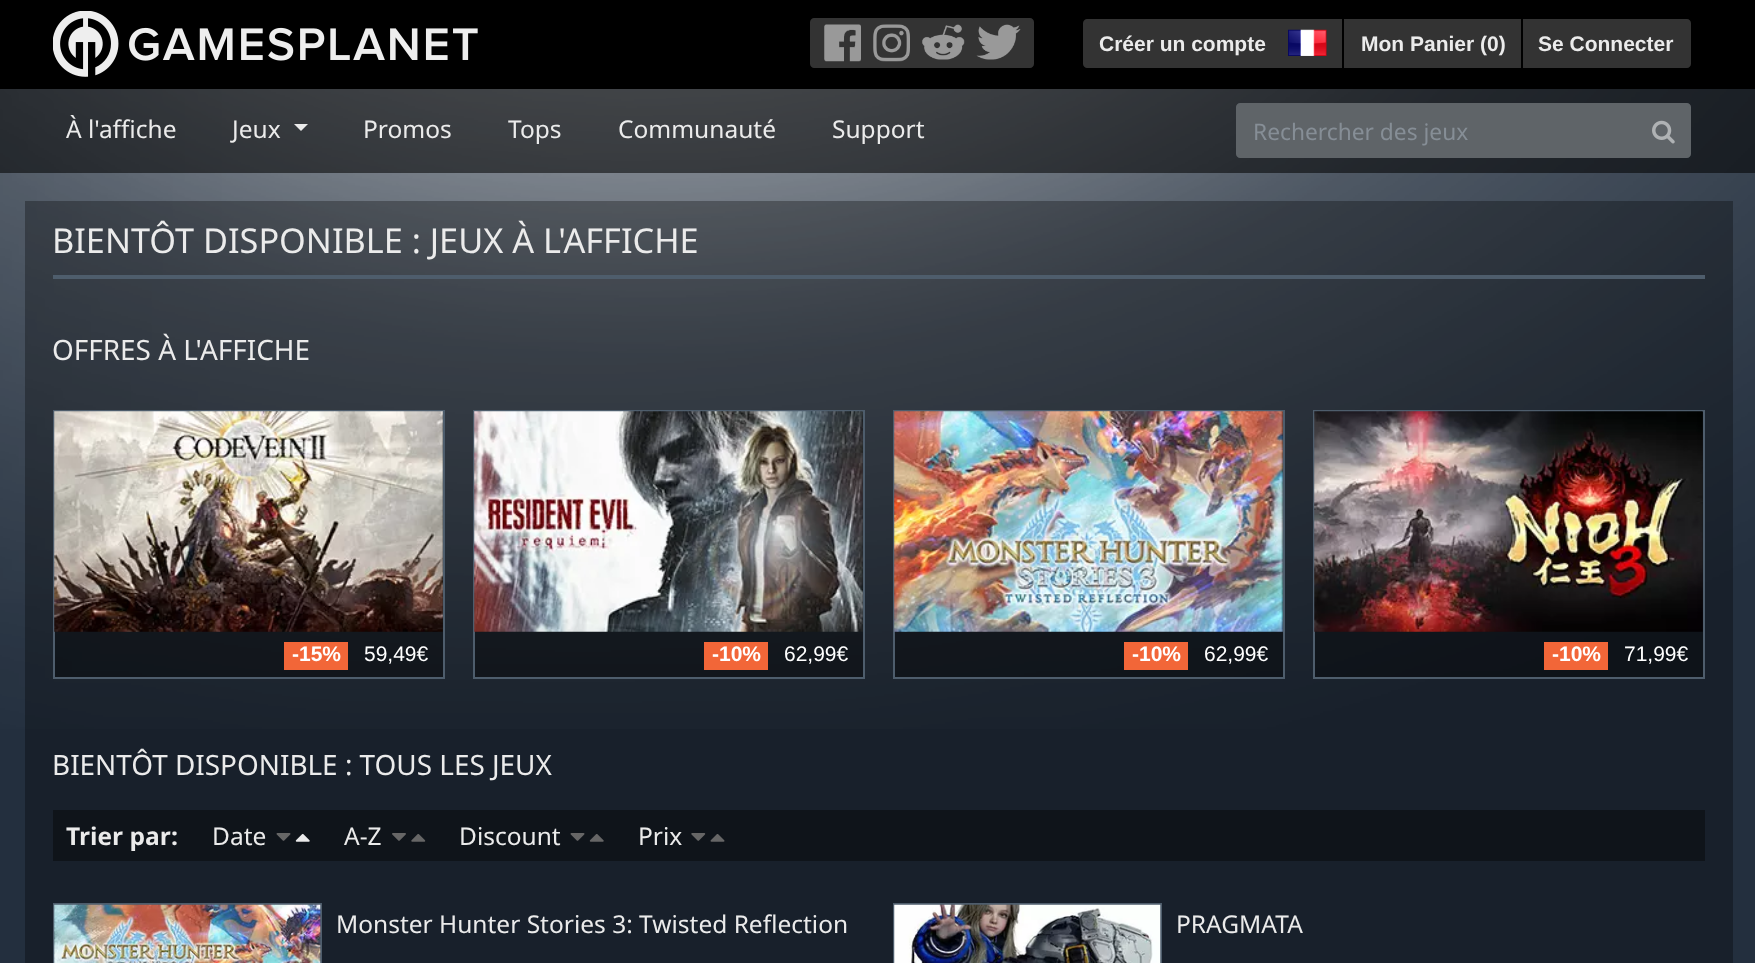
<?xml version="1.0" encoding="UTF-8"?>
<svg xmlns="http://www.w3.org/2000/svg" xmlns:xlink="http://www.w3.org/1999/xlink" width="1755" height="963">
  <rect width="100%" height="100%" fill="#232f3e" />
  <image x="0" y="89" width="1755" height="640" xlink:href="image1.png" />
  <rect width="1755" height="89" fill="#000000" />
  <image x="53" y="11" width="425" height="66" xlink:href="image2.png" />
  <path d="M 814 18 h 54 v 50 h -54 c -2 0 -4 -2 -4 -4 v -42 c 0 -2 2 -4 4 -4 z" fill="#333333" />
  <image x="824" y="24" width="37" height="38" xlink:href="image3.png" />
  <rect x="868" y="18" width="102" height="50" fill="#333333" />
  <image x="873" y="24" width="37" height="38" xlink:href="image4.png" />
  <path d="M 970 18 h 60 c 2 0 4 2 4 4 v 42 c 0 2 -2 4 -4 4 h -60 z" fill="#333333" />
  <image x="976" y="24" width="45" height="36" xlink:href="image5.png" />
  <image x="922" y="24" width="43" height="36" xlink:href="image6.png" />
  <path d="M 1087 19 h 194 v 49 h -194 c -2 0 -4 -2 -4 -4 v -41 c 0 -2 2 -4 4 -4 z" fill="#333333" />
  <rect x="1281" y="19" width="61" height="49" fill="#333333" />
  <image x="1288" y="29" width="39" height="27" xlink:href="image7.png" />
  <rect x="1344" y="19" width="177" height="49" fill="#333333" />
  <path d="M 1523 19 h 164 c 2 0 4 2 4 4 v 41 c 0 2 -2 4 -4 4 h -164 z" fill="#333333" />
  <rect y="89" width="1755" height="84" fill="#000000" fill-opacity="0.55" />
  <path d="M 294 124 h 14 l -7 7 z" fill="#ebebeb" />
  <path d="M 1240 104 h 397 v 53 h -397 c -1.5 0 -3 -1.5 -3 -3 v -47 c 0 -1.5 1.5 -3 3 -3 z" fill="#5f6468" stroke="#5f6468" stroke-width="2" />
  <path d="M 1637 104 h 50 c 1.5 0 3 1.5 3 3 v 47 c 0 1.5 -1.5 3 -3 3 h -50 z" fill="#5f6468" stroke="#5f6468" stroke-width="2" />
  <image x="1652" y="120" width="23" height="24" xlink:href="image8.png" />
  <rect x="25" y="201" width="1708" height="762" fill="#000000" fill-opacity="0.3" />
  <rect x="53" y="275" width="1652" height="4" fill="#4e5d6c" />
  <rect x="54" y="411" width="390" height="267" fill="#000000" fill-opacity="0.4" stroke="#4e5d6c" stroke-width="2" />
  <image x="54" y="411" width="389" height="221" xlink:href="image9.png" />
  <rect x="284" y="642" width="64" height="28" fill="#f26638" />
  <rect x="474" y="411" width="390" height="267" fill="#000000" fill-opacity="0.4" stroke="#4e5d6c" stroke-width="2" />
  <image x="474" y="411" width="389" height="221" xlink:href="image10.png" />
  <rect x="704" y="642" width="64" height="28" fill="#f26638" />
  <rect x="894" y="411" width="390" height="267" fill="#000000" fill-opacity="0.4" stroke="#4e5d6c" stroke-width="2" />
  <image x="894" y="411" width="389" height="221" xlink:href="image11.png" />
  <rect x="1124" y="642" width="64" height="28" fill="#f26638" />
  <rect x="1314" y="411" width="390" height="267" fill="#000000" fill-opacity="0.4" stroke="#4e5d6c" stroke-width="2" />
  <image x="1314" y="411" width="389" height="221" xlink:href="image12.png" />
  <rect x="1544" y="642" width="64" height="28" fill="#f26638" />
  <rect x="53" y="810" width="1652" height="51" fill="#0f141a" />
  <image x="276" y="833" width="15" height="8" xlink:href="image13.png" />
  <image x="295" y="833" width="15" height="9" xlink:href="image14.png" />
  <image x="392" y="833" width="14" height="8" xlink:href="image15.png" />
  <image x="411" y="834" width="15" height="8" xlink:href="image16.png" />
  <image x="570" y="833" width="15" height="8" xlink:href="image13.png" />
  <image x="589" y="834" width="15" height="8" xlink:href="image17.png" />
  <image x="691" y="833" width="15" height="8" xlink:href="image18.png" />
  <image x="710" y="834" width="15" height="8" xlink:href="image19.png" />
  <rect x="54" y="904" width="267" height="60" fill="none" stroke="#4e5d6c" stroke-width="2" />
  <image x="54" y="904" width="267" height="59" xlink:href="image20.png" />
  <rect x="894" y="904" width="267" height="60" fill="none" stroke="#4e5d6c" stroke-width="2" />
  <image x="894" y="904" width="267" height="59" xlink:href="image21.png" />
  <text x="1099" y="51" style="font-family: Liberation Sans; font-size: 21px; font-weight: bold; fill: #ebebeb">Créer un compte</text>
  <text x="1361" y="51" style="font-family: Liberation Sans; font-size: 21px; font-weight: bold; fill: #ebebeb">Mon Panier (0)</text>
  <text x="1538" y="51" style="font-family: Liberation Sans; font-size: 21px; font-weight: bold; fill: #ebebeb">Se Connecter</text>
  <text x="66" y="138" style="font-family: Noto Sans; font-size: 24.5px; fill: #ebebeb">À l'affiche</text>
  <text x="232" y="138" style="font-family: Noto Sans; font-size: 24.5px; fill: #ebebeb">Jeux</text>
  <text x="363" y="138" style="font-family: Noto Sans; font-size: 24.5px; fill: #ebebeb">Promos</text>
  <text x="508" y="138" style="font-family: Noto Sans; font-size: 24.5px; fill: #ebebeb">Tops</text>
  <text x="618" y="138" style="font-family: Noto Sans; font-size: 24.5px; fill: #ebebeb">Communauté</text>
  <text x="832" y="138" style="font-family: Noto Sans; font-size: 24.5px; fill: #ebebeb">Support</text>
  <text x="1253" y="140" style="font-family: Noto Sans; font-size: 22.75px; fill: #868e96">Rechercher des jeux</text>
  <text x="52" y="253" style="font-family: Noto Sans; font-size: 34.25px; fill: #ebebeb">BIENTÔT DISPONIBLE : JEUX À L'AFFICHE</text>
  <text x="52" y="360" style="font-family: Noto Sans; font-size: 27.9px; fill: #ebebeb">OFFRES À L'AFFICHE</text>
  <text x="292" y="661" style="font-family: Liberation Sans; font-size: 21px; font-weight: bold; fill: #ffffff">-15%</text>
  <text x="364" y="661" style="font-family: Liberation Sans; font-size: 21px; fill: #ffffff">59,49€</text>
  <text x="712" y="661" style="font-family: Liberation Sans; font-size: 21px; font-weight: bold; fill: #ffffff">-10%</text>
  <text x="784" y="661" style="font-family: Liberation Sans; font-size: 21px; fill: #ffffff">62,99€</text>
  <text x="1132" y="661" style="font-family: Liberation Sans; font-size: 21px; font-weight: bold; fill: #ffffff">-10%</text>
  <text x="1204" y="661" style="font-family: Liberation Sans; font-size: 21px; fill: #ffffff">62,99€</text>
  <text x="1552" y="661" style="font-family: Liberation Sans; font-size: 21px; font-weight: bold; fill: #ffffff">-10%</text>
  <text x="1624" y="661" style="font-family: Liberation Sans; font-size: 21px; fill: #ffffff">71,99€</text>
  <text x="52" y="775" style="font-family: Noto Sans; font-size: 27.9px; fill: #ebebeb">BIENTÔT DISPONIBLE : TOUS LES JEUX</text>
  <text x="66" y="845" style="font-family: Noto Sans; font-size: 24.5px; font-weight: bold; fill: #ebebeb">Trier par:</text>
  <text x="212" y="845" style="font-family: Noto Sans; font-size: 24.5px; fill: #ebebeb">Date</text>
  <text x="344" y="845" style="font-family: Noto Sans; font-size: 24.5px; fill: #ebebeb">A-Z</text>
  <text x="459" y="845" style="font-family: Noto Sans; font-size: 24.5px; fill: #ebebeb">Discount</text>
  <text x="638" y="845" style="font-family: Noto Sans; font-size: 24.5px; fill: #ebebeb">Prix</text>
  <text x="336" y="933" style="font-family: Noto Sans; font-size: 24.5px; fill: #ebebeb">Monster Hunter Stories 3: Twisted Reflection</text>
  <text x="1176" y="933" style="font-family: Noto Sans; font-size: 24.5px; fill: #ebebeb">PRAGMATA</text>
</svg>
